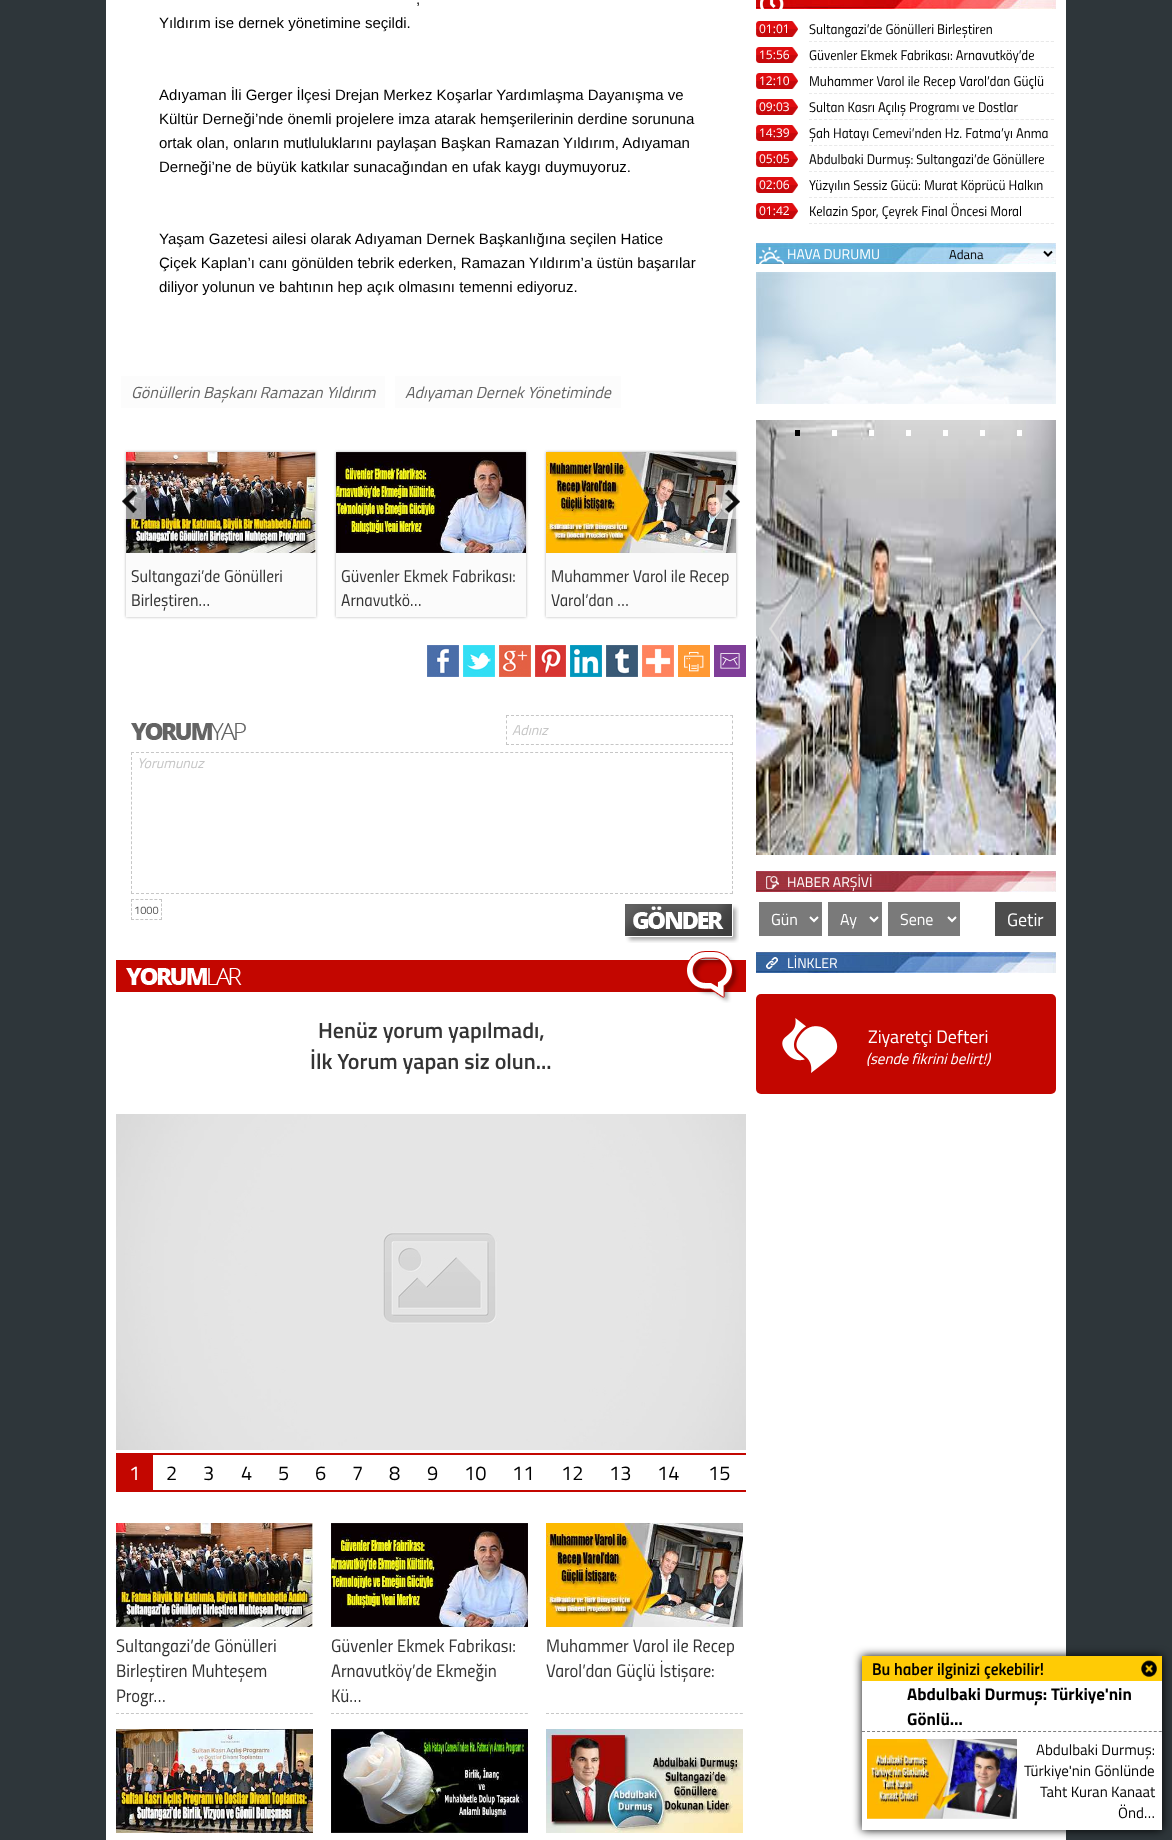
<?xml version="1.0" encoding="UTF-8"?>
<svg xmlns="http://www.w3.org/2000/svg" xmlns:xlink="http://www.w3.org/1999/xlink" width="1172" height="1840">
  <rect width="100%" height="100%" fill="#2e363a" />
  <rect x="106" width="960" height="1840" fill="#ffffff" />
  <rect x="121" y="376" width="264" height="32" fill="#fcfcfc" />
  <rect x="395" y="376" width="226" height="32" fill="#fcfcfc" />
  <rect x="126" y="452" width="190" height="165" fill="#b3b3b3" filter="blur(1.5px)" />
  <image x="126" y="452" width="190" height="101" xlink:href="image3.png" />
  <image x="122" y="485" width="24" height="34" xlink:href="image1.png" />
  <rect x="546" y="452" width="190" height="165" fill="#b3b3b3" filter="blur(1.5px)" />
  <image x="546" y="452" width="190" height="101" xlink:href="image5.png" />
  <image x="716" y="485" width="24" height="34" xlink:href="image2.png" />
  <rect x="126" y="553" width="190" height="64" fill="#fbfbfb" />
  <rect x="336" y="452" width="190" height="165" fill="#b3b3b3" filter="blur(1.5px)" />
  <rect x="336" y="553" width="190" height="64" fill="#fbfbfb" />
  <image x="336" y="452" width="190" height="101" xlink:href="image4.png" />
  <rect x="546" y="553" width="190" height="64" fill="#fbfbfb" />
  <image x="427" y="645" width="32" height="32" xlink:href="image6.png" />
  <image x="463" y="645" width="32" height="32" xlink:href="image7.png" />
  <image x="499" y="645" width="32" height="32" xlink:href="image8.png" />
  <image x="535" y="645" width="31" height="32" xlink:href="image9.png" />
  <image x="570" y="645" width="32" height="32" xlink:href="image10.png" />
  <image x="606" y="645" width="32" height="32" xlink:href="image11.png" />
  <image x="642" y="645" width="32" height="32" xlink:href="image12.png" />
  <image x="678" y="645" width="32" height="32" xlink:href="image13.png" />
  <image x="714" y="645" width="32" height="32" xlink:href="image14.png" />
  <image x="131" y="723" width="115" height="17" xlink:href="image15.png" />
  <path d="M 506 715.5 h 227" fill="none" stroke="#c6c6c6" stroke-dasharray="3 1.98" />
  <path d="M 732.5 715 v 30" fill="none" stroke="#c6c6c6" stroke-dasharray="3 2.4" />
  <path d="M 506 744.5 h 227" fill="none" stroke="#c6c6c6" stroke-dasharray="3 1.98" />
  <path d="M 506.5 715 v 30" fill="none" stroke="#c6c6c6" stroke-dasharray="3 2.4" />
  <path d="M 131 752.5 h 602" fill="none" stroke="#c6c6c6" stroke-dasharray="3 1.99" />
  <path d="M 732.5 752 v 142" fill="none" stroke="#c6c6c6" stroke-dasharray="3 1.96" />
  <path d="M 131 893.5 h 602" fill="none" stroke="#c6c6c6" stroke-dasharray="3 1.99" />
  <path d="M 131.5 752 v 142" fill="none" stroke="#c6c6c6" stroke-dasharray="3 1.96" />
  <path d="M 131 899.5 h 31" fill="none" stroke="#c6c6c6" stroke-dasharray="3 1.67" />
  <path d="M 161.5 899 v 21" fill="none" stroke="#c6c6c6" stroke-dasharray="3 1.5" />
  <path d="M 131 919.5 h 31" fill="none" stroke="#c6c6c6" stroke-dasharray="3 1.67" />
  <path d="M 131.5 899 v 21" fill="none" stroke="#c6c6c6" stroke-dasharray="3 1.5" />
  <image x="625" y="904" width="114" height="39" xlink:href="image16.png" />
  <rect x="116" y="960" width="630" height="32" fill="#c30600" />
  <image x="126" y="968" width="116" height="17" xlink:href="image17.png" />
  <image x="687" y="951" width="52" height="52" xlink:href="image18.png" />
  <image x="116" y="1114" width="630" height="336" xlink:href="image19.png" />
  <rect x="116" y="1453" width="630" height="2" fill="#c30600" />
  <rect x="116" y="1490" width="630" height="2" fill="#c30600" />
  <rect x="116" y="1455" width="37" height="35" fill="#c30600" />
  <path d="M 116 1713.5 h 197" fill="none" stroke="#c6c6c6" stroke-dasharray="3 1.97" />
  <image x="116" y="1523" width="197" height="104" xlink:href="image20.png" />
  <path d="M 331 1713.5 h 197" fill="none" stroke="#c6c6c6" stroke-dasharray="3 1.97" />
  <image x="331" y="1523" width="197" height="104" xlink:href="image21.png" />
  <path d="M 546 1713.5 h 197" fill="none" stroke="#c6c6c6" stroke-dasharray="3 1.97" />
  <image x="546" y="1523" width="197" height="104" xlink:href="image22.png" />
  <image x="116" y="1729" width="197" height="104" xlink:href="image23.png" />
  <image x="331" y="1729" width="197" height="104" xlink:href="image24.png" />
  <image x="546" y="1729" width="197" height="104" xlink:href="image25.png" />
  <image x="756" y="0" width="300" height="9" xlink:href="image26.png" />
  <image x="760" y="0" width="24" height="9" xlink:href="image27.png" />
  <image x="756" y="21" width="42" height="16" xlink:href="image28.png" />
  <path d="M 809 41.5 h 245" fill="none" stroke="#e9e9e9" stroke-dasharray="3 2.04" />
  <path d="M 809 41.5 h 245" fill="none" stroke="#e9e9e9" stroke-dasharray="3 2.04" />
  <image x="756" y="47" width="42" height="16" xlink:href="image28.png" />
  <path d="M 809 67.5 h 245" fill="none" stroke="#e9e9e9" stroke-dasharray="3 2.04" />
  <path d="M 809 67.5 h 245" fill="none" stroke="#e9e9e9" stroke-dasharray="3 2.04" />
  <image x="756" y="73" width="42" height="16" xlink:href="image28.png" />
  <path d="M 809 93.5 h 245" fill="none" stroke="#e9e9e9" stroke-dasharray="3 2.04" />
  <path d="M 809 93.5 h 245" fill="none" stroke="#e9e9e9" stroke-dasharray="3 2.04" />
  <image x="756" y="99" width="42" height="16" xlink:href="image28.png" />
  <path d="M 809 119.5 h 245" fill="none" stroke="#e9e9e9" stroke-dasharray="3 2.04" />
  <path d="M 809 119.5 h 245" fill="none" stroke="#e9e9e9" stroke-dasharray="3 2.04" />
  <image x="756" y="125" width="42" height="16" xlink:href="image28.png" />
  <path d="M 809 145.5 h 245" fill="none" stroke="#e9e9e9" stroke-dasharray="3 2.04" />
  <path d="M 809 145.5 h 245" fill="none" stroke="#e9e9e9" stroke-dasharray="3 2.04" />
  <image x="756" y="151" width="42" height="16" xlink:href="image28.png" />
  <path d="M 809 171.5 h 245" fill="none" stroke="#e9e9e9" stroke-dasharray="3 2.04" />
  <path d="M 809 171.5 h 245" fill="none" stroke="#e9e9e9" stroke-dasharray="3 2.04" />
  <image x="756" y="177" width="42" height="16" xlink:href="image28.png" />
  <path d="M 809 197.5 h 245" fill="none" stroke="#e9e9e9" stroke-dasharray="3 2.04" />
  <path d="M 809 197.5 h 245" fill="none" stroke="#e9e9e9" stroke-dasharray="3 2.04" />
  <image x="756" y="203" width="42" height="16" xlink:href="image28.png" />
  <path d="M 809 223.5 h 245" fill="none" stroke="#e9e9e9" stroke-dasharray="3 2.04" />
  <path d="M 809 223.5 h 245" fill="none" stroke="#e9e9e9" stroke-dasharray="3 2.04" />
  <image x="756" y="243" width="300" height="21" xlink:href="image29.png" />
  <image x="759" y="247" width="25" height="17" xlink:href="image30.png" />
  <path d="M 1044 251.5 l 4 4 l 4 -4" fill="none" stroke="#000000" stroke-width="2" />
  <image x="756" y="272" width="300" height="132" xlink:href="image31.png" />
  <image x="756" y="420" width="300" height="435" xlink:href="image32.png" />
  <rect x="795" y="430" width="5" height="6" fill="#000000" />
  <rect x="832" y="430" width="5" height="6" fill="#ffffff" />
  <rect x="869" y="430" width="5" height="6" fill="#ffffff" />
  <rect x="906" y="430" width="5" height="6" fill="#ffffff" />
  <rect x="943" y="430" width="5" height="6" fill="#ffffff" />
  <rect x="980" y="430" width="5" height="6" fill="#ffffff" />
  <rect x="1017" y="430" width="5" height="6" fill="#ffffff" />
  <image x="769" y="594" width="23" height="71" xlink:href="image33.png" />
  <image x="1022" y="594" width="23" height="71" xlink:href="image34.png" />
  <image x="756" y="871" width="300" height="21" xlink:href="image35.png" />
  <image x="766" y="876" width="13" height="13" xlink:href="image36.png" />
  <rect x="759" y="902" width="63" height="34" fill="#7a7a7a" />
  <path d="M 810 917 l 4 4 l 4 -4" fill="none" stroke="#ffffff" stroke-width="2" />
  <rect x="828" y="902" width="54" height="34" fill="#7a7a7a" />
  <path d="M 870 917 l 4 4 l 4 -4" fill="none" stroke="#ffffff" stroke-width="2" />
  <rect x="888" y="902" width="72" height="34" fill="#7a7a7a" />
  <path d="M 948 917 l 4 4 l 4 -4" fill="none" stroke="#ffffff" stroke-width="2" />
  <rect x="995" y="902" width="61" height="34" fill="#4d4d4d" />
  <image x="756" y="952" width="300" height="21" xlink:href="image37.png" />
  <image x="766" y="957" width="12" height="12" xlink:href="image38.png" />
  <rect x="756" y="994" width="300" height="100" rx="5" fill="#c30600" />
  <image x="782" y="1018" width="56" height="55" xlink:href="image39.png" />
  <rect x="862" y="1656" width="300" height="174" fill="#000000" filter="blur(5px)" />
  <rect x="862" y="1681" width="300" height="149" fill="#ffffff" />
  <rect x="862" y="1656" width="300" height="25" fill="#ffcb05" />
  <image x="1141" y="1660" width="16" height="17" xlink:href="image40.png" />
  <path d="M 862 1731.5 h 300" fill="none" stroke="#808080" stroke-dasharray="3 2.03" />
  <image x="867" y="1739" width="150" height="80" xlink:href="image41.png" />
  <text x="416" y="4" style="font-family: Liberation Sans; font-size: 15px; fill: #000000">,</text>
  <text x="159" y="28" style="font-family: Liberation Sans; font-size: 15px; fill: #000000">Yıldırım ise dernek yönetimine seçildi.</text>
  <text x="159" y="100" style="font-family: Liberation Sans; font-size: 15px; fill: #000000">Adıyaman İli Gerger İlçesi Drejan Merkez Koşarlar Yardımlaşma Dayanışma ve</text>
  <text x="159" y="124" style="font-family: Liberation Sans; font-size: 15px; fill: #000000">Kültür Derneği’nde önemli projelere imza atarak hemşerilerinin derdine sorununa</text>
  <text x="159" y="148" style="font-family: Liberation Sans; font-size: 15px; fill: #000000">ortak olan, onların mutluluklarını paylaşan Başkan Ramazan Yıldırım, Adıyaman</text>
  <text x="159" y="172" style="font-family: Liberation Sans; font-size: 15px; fill: #000000">Derneği’ne de büyük katkılar sunacağından en ufak kaygı duymuyoruz.</text>
  <text x="159" y="244" style="font-family: Liberation Sans; font-size: 15px; fill: #000000">Yaşam Gazetesi ailesi olarak Adıyaman Dernek Başkanlığına seçilen Hatice</text>
  <text x="159" y="268" style="font-family: Liberation Sans; font-size: 15px; fill: #000000">Çiçek Kaplan’ı canı gönülden tebrik ederken, Ramazan Yıldırım’a üstün başarılar</text>
  <text x="159" y="292" style="font-family: Liberation Sans; font-size: 15px; fill: #000000">diliyor yolunun ve bahtının hep açık olmasını temenni ediyoruz.</text>
  <text x="131" y="398" style="font-family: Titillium; font-size: 16px; font-style: italic; fill: #646464">Gönüllerin Başkanı Ramazan Yıldırım</text>
  <text x="405" y="398" style="font-family: Titillium; font-size: 16px; font-style: italic; fill: #646464">Adıyaman Dernek Yönetiminde</text>
  <text x="131" y="582" style="font-family: 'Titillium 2'; font-size: 17px; fill: #343434">Sultangazi’de Gönülleri</text>
  <text x="131" y="606" style="font-family: 'Titillium 2'; font-size: 17px; fill: #343434">Birleştiren…</text>
  <text x="341" y="582" style="font-family: 'Titillium 2'; font-size: 17px; fill: #343434">Güvenler Ekmek Fabrikası:</text>
  <text x="341" y="606" style="font-family: 'Titillium 2'; font-size: 17px; fill: #343434">Arnavutkö…</text>
  <text x="551" y="582" style="font-family: 'Titillium 2'; font-size: 17px; fill: #343434">Muhammer Varol ile Recep</text>
  <text x="551" y="606" style="font-family: 'Titillium 2'; font-size: 17px; fill: #343434">Varol’dan …</text>
  <text x="512" y="735" style="font-family: Titillium; font-size: 14px; font-style: italic; fill: #c6c6c6">Adınız</text>
  <text x="137" y="768" style="font-family: Titillium; font-size: 14px; font-style: italic; fill: #c6c6c6">Yorumunuz</text>
  <text x="134" y="914" style="font-family: Titillium; font-size: 11px; fill: #585858">1000</text>
  <text x="318" y="1038" style="font-family: Titillium; font-size: 22px; font-weight: 600; fill: #343434">Henüz yorum yapılmadı,</text>
  <text x="310" y="1069" style="font-family: Titillium; font-size: 22px; font-weight: 600; fill: #343434">İlk Yorum yapan siz olun...</text>
  <text x="129" y="1480" style="font-family: Titillium; font-size: 20px; fill: #ffffff">1</text>
  <text x="166" y="1480" style="font-family: Titillium; font-size: 20px; fill: #000000">2</text>
  <text x="203" y="1480" style="font-family: Titillium; font-size: 20px; fill: #000000">3</text>
  <text x="241" y="1480" style="font-family: Titillium; font-size: 20px; fill: #000000">4</text>
  <text x="278" y="1480" style="font-family: Titillium; font-size: 20px; fill: #000000">5</text>
  <text x="315" y="1480" style="font-family: Titillium; font-size: 20px; fill: #000000">6</text>
  <text x="352" y="1480" style="font-family: Titillium; font-size: 20px; fill: #000000">7</text>
  <text x="389" y="1480" style="font-family: Titillium; font-size: 20px; fill: #000000">8</text>
  <text x="427" y="1480" style="font-family: Titillium; font-size: 20px; fill: #000000">9</text>
  <text x="464" y="1480" style="font-family: Titillium; font-size: 20px; fill: #000000">10</text>
  <text x="512" y="1480" style="font-family: Titillium; font-size: 20px; fill: #000000">11</text>
  <text x="561" y="1480" style="font-family: Titillium; font-size: 20px; fill: #000000">12</text>
  <text x="609" y="1480" style="font-family: Titillium; font-size: 20px; fill: #000000">13</text>
  <text x="657" y="1480" style="font-family: Titillium; font-size: 20px; fill: #000000">14</text>
  <text x="708" y="1480" style="font-family: Titillium; font-size: 20px; fill: #000000">15</text>
  <text x="116" y="1652" style="font-family: 'Titillium 2'; font-size: 18px; fill: #343434">Sultangazi’de Gönülleri</text>
  <text x="116" y="1677" style="font-family: 'Titillium 2'; font-size: 18px; fill: #343434">Birleştiren Muhteşem</text>
  <text x="116" y="1702" style="font-family: 'Titillium 2'; font-size: 18px; fill: #343434">Progr…</text>
  <text x="331" y="1652" style="font-family: 'Titillium 2'; font-size: 18px; fill: #343434">Güvenler Ekmek Fabrikası:</text>
  <text x="331" y="1677" style="font-family: 'Titillium 2'; font-size: 18px; fill: #343434">Arnavutköy’de Ekmeğin</text>
  <text x="331" y="1702" style="font-family: 'Titillium 2'; font-size: 18px; fill: #343434">Kü…</text>
  <text x="546" y="1652" style="font-family: 'Titillium 2'; font-size: 18px; fill: #343434">Muhammer Varol ile Recep</text>
  <text x="546" y="1677" style="font-family: 'Titillium 2'; font-size: 18px; fill: #343434">Varol’dan Güçlü İstişare:</text>
  <text x="759" y="33" style="font-family: Open Sans; font-size: 12px; fill: #ffffff">01:01</text>
  <text x="809" y="34" style="font-family: 'Titillium 2'; font-size: 14px; fill: #000000">Sultangazi’de Gönülleri Birleştiren</text>
  <text x="759" y="59" style="font-family: Open Sans; font-size: 12px; fill: #ffffff">15:56</text>
  <text x="809" y="60" style="font-family: 'Titillium 2'; font-size: 14px; fill: #000000">Güvenler Ekmek Fabrikası: Arnavutköy’de</text>
  <text x="759" y="85" style="font-family: Open Sans; font-size: 12px; fill: #ffffff">12:10</text>
  <text x="809" y="86" style="font-family: 'Titillium 2'; font-size: 14px; fill: #000000">Muhammer Varol ile Recep Varol’dan Güçlü</text>
  <text x="759" y="111" style="font-family: Open Sans; font-size: 12px; fill: #ffffff">09:03</text>
  <text x="809" y="112" style="font-family: 'Titillium 2'; font-size: 14px; fill: #000000">Sultan Kasrı Açılış Programı ve Dostlar</text>
  <text x="759" y="137" style="font-family: Open Sans; font-size: 12px; fill: #ffffff">14:39</text>
  <text x="809" y="138" style="font-family: 'Titillium 2'; font-size: 14px; fill: #000000">Şah Hatayı Cemevi’nden Hz. Fatma’yı Anma</text>
  <text x="759" y="163" style="font-family: Open Sans; font-size: 12px; fill: #ffffff">05:05</text>
  <text x="809" y="164" style="font-family: 'Titillium 2'; font-size: 14px; fill: #000000">Abdulbaki Durmuş: Sultangazi’de Gönüllere</text>
  <text x="759" y="189" style="font-family: Open Sans; font-size: 12px; fill: #ffffff">02:06</text>
  <text x="809" y="190" style="font-family: 'Titillium 2'; font-size: 14px; fill: #000000">Yüzyılın Sessiz Gücü: Murat Köprücü Halkın</text>
  <text x="759" y="215" style="font-family: Open Sans; font-size: 12px; fill: #ffffff">01:42</text>
  <text x="809" y="216" style="font-family: 'Titillium 2'; font-size: 14px; fill: #000000">Kelazin Spor, Çeyrek Final Öncesi Moral</text>
  <text x="787" y="259" style="font-family: Titillium; font-size: 14px; fill: #ffffff">HAVA DURUMU</text>
  <text x="949" y="259" style="font-family: Titillium; font-size: 13px; fill: #000000">Adana</text>
  <text x="787" y="887" style="font-family: Titillium; font-size: 14px; fill: #ffffff">HABER ARŞİVİ</text>
  <text x="771" y="925" style="font-family: Titillium; font-size: 16px; fill: #ffffff">Gün</text>
  <text x="840" y="925" style="font-family: Titillium; font-size: 16px; fill: #ffffff">Ay</text>
  <text x="900" y="925" style="font-family: Titillium; font-size: 16px; fill: #ffffff">Sene</text>
  <text x="1007" y="926" style="font-family: Titillium; font-size: 18px; fill: #ffffff">Getir</text>
  <text x="787" y="968" style="font-family: Titillium; font-size: 14px; fill: #ffffff">LİNKLER</text>
  <text x="868" y="1043" style="font-family: Titillium; font-size: 18px; fill: #ffffff">Ziyaretçi Defteri</text>
  <text x="866" y="1064" style="font-family: Titillium; font-size: 15px; font-style: italic; fill: #ffffff">(sende fikrini belirt!)</text>
  <text x="872" y="1675" style="font-family: Titillium; font-size: 17px; font-weight: 600; font-style: italic; fill: #000000">Bu haber ilginizi çekebilir!</text>
  <text x="907" y="1700" style="font-family: Titillium; font-size: 17px; font-weight: bold; fill: #000000">Abdulbaki Durmuş: Türkiye'nin</text>
  <text x="907" y="1725" style="font-family: Titillium; font-size: 17px; font-weight: bold; fill: #000000">Gönlü…</text>
  <text x="1036" y="1755" style="font-family: Titillium; font-size: 15px; fill: #000000">Abdulbaki Durmuş:</text>
  <text x="1024" y="1776" style="font-family: Titillium; font-size: 15px; fill: #000000">Türkiye'nin Gönlünde</text>
  <text x="1040" y="1797" style="font-family: Titillium; font-size: 15px; fill: #000000">Taht Kuran Kanaat</text>
  <text x="1118" y="1818" style="font-family: Titillium; font-size: 15px; fill: #000000">Önd…</text>
</svg>
